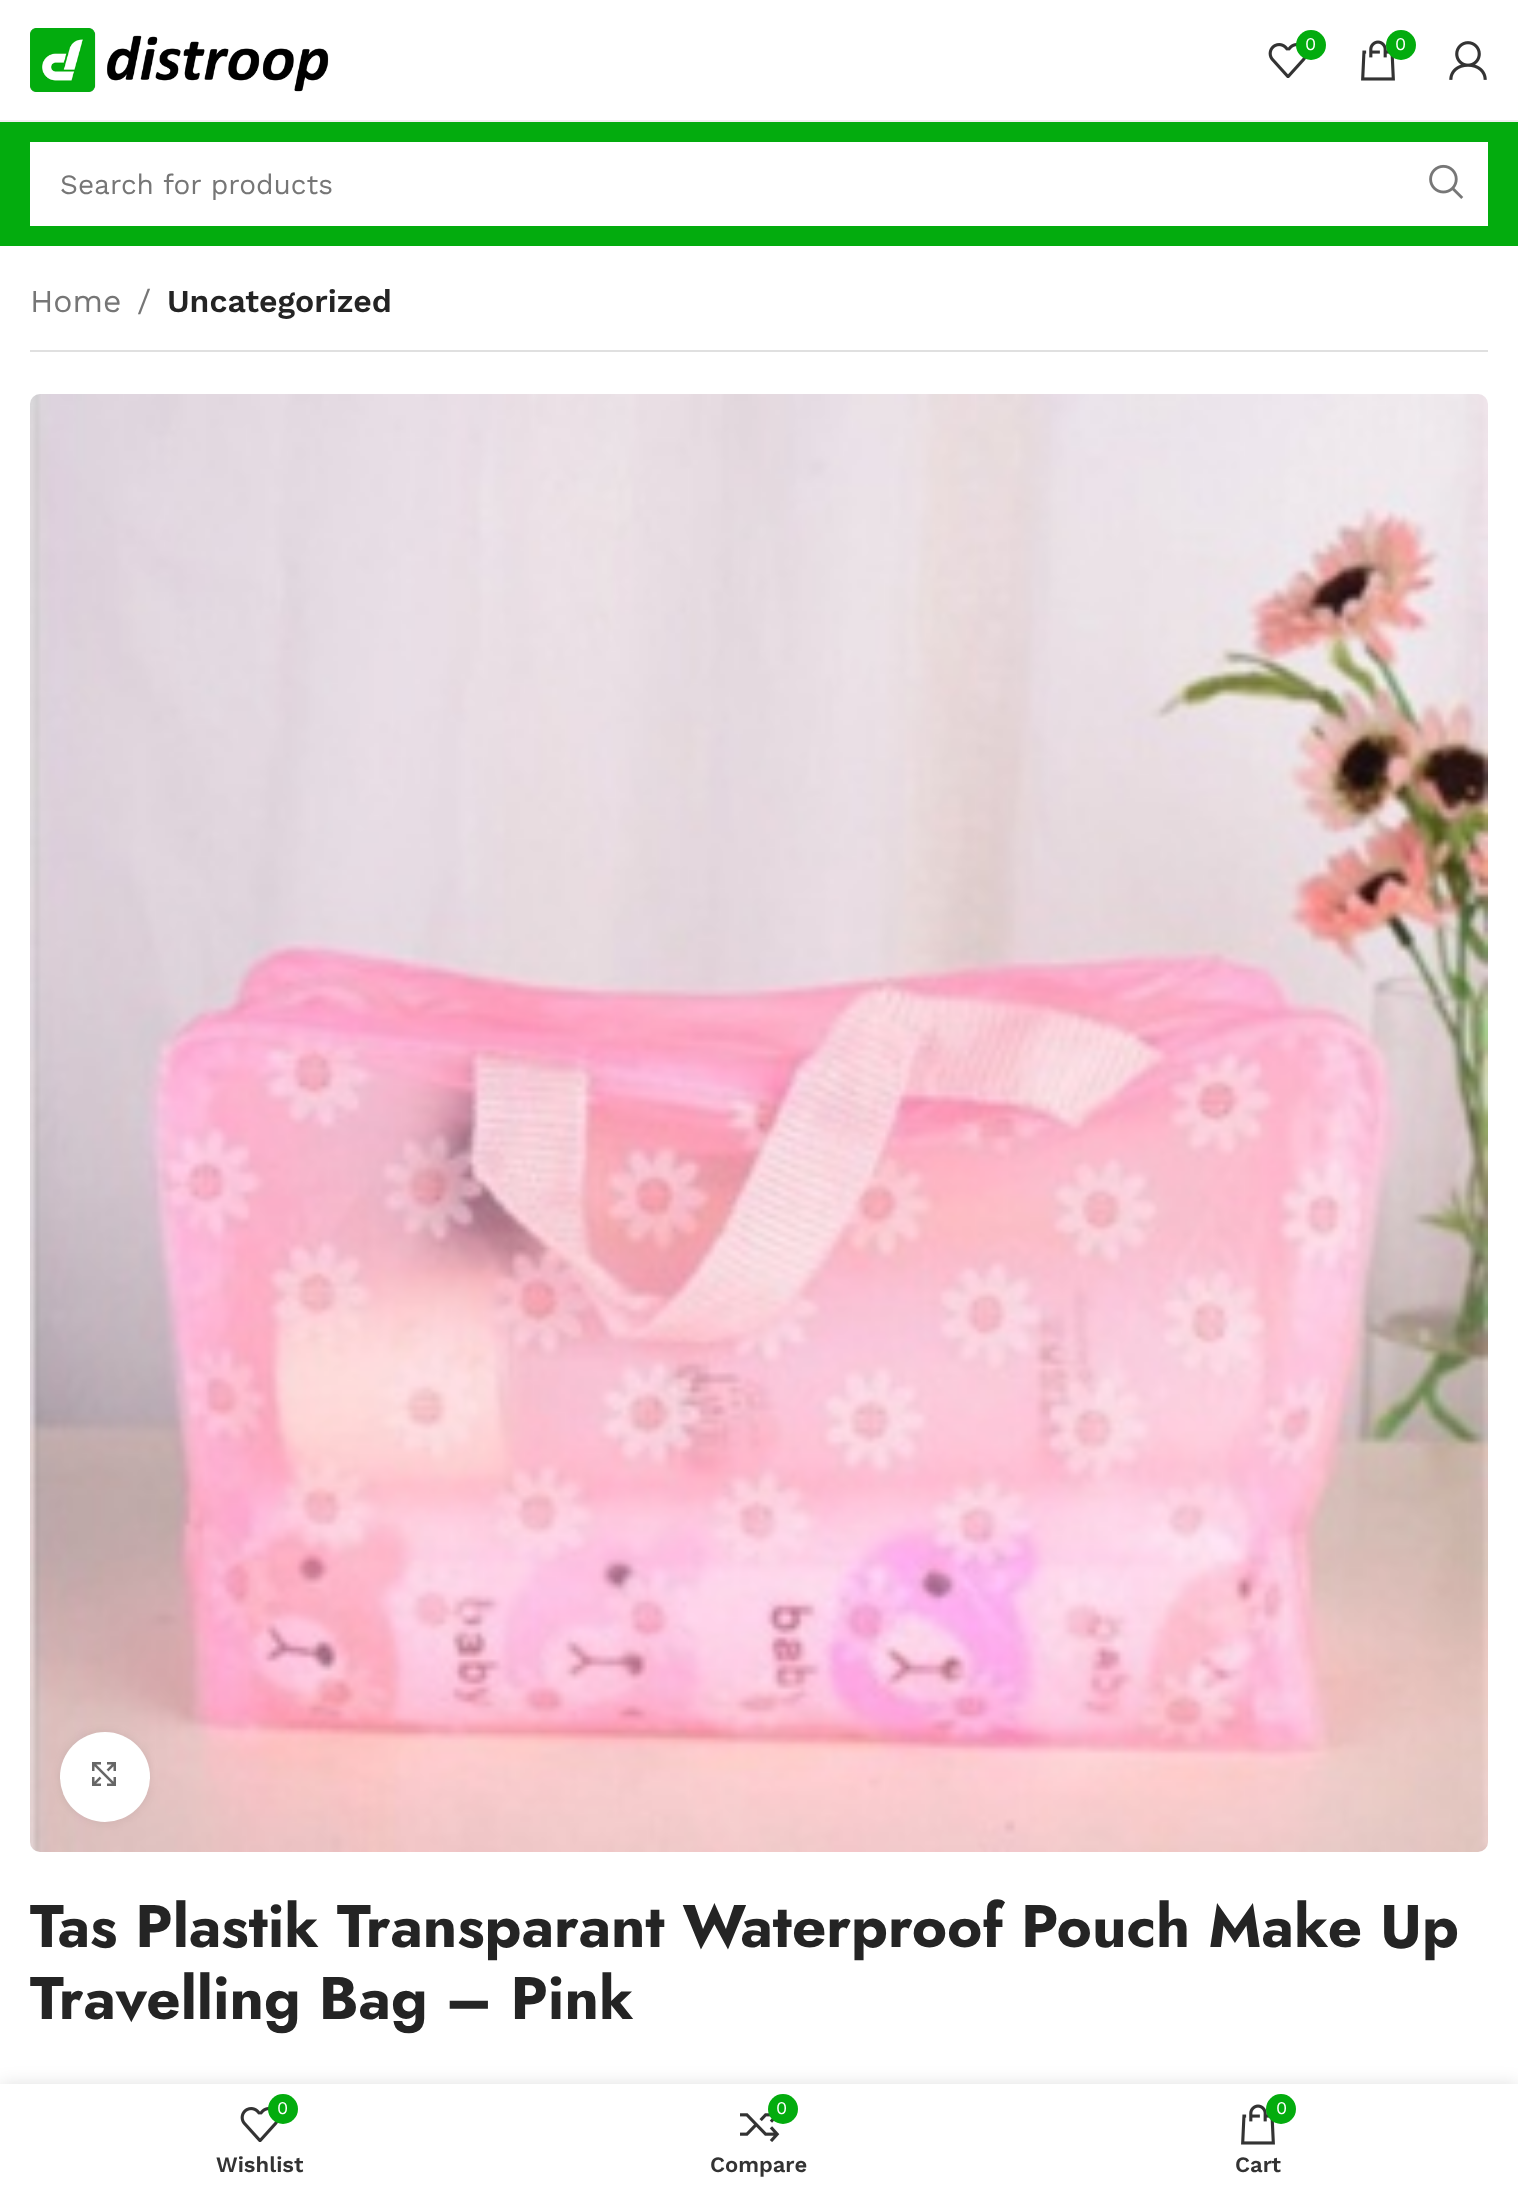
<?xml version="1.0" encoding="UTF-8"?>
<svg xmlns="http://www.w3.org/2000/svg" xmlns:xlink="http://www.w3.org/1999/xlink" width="1518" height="2194">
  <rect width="100%" height="100%" fill="#ffffff" />
  <rect y="120" width="1518" height="2" fill="#f0f0f0" />
  <image x="30" y="28" width="299" height="64" xlink:href="image1.png" />
  <image x="1268" y="43" width="38" height="35" xlink:href="image2.png" />
  <circle cx="1311" cy="45" r="15" fill="#03ac0e" />
  <image x="1361" y="40" width="34" height="41" xlink:href="image3.png" />
  <circle cx="1401" cy="45" r="15" fill="#03ac0e" />
  <image x="1449" y="41" width="38" height="39" xlink:href="image4.png" />
  <rect y="122" width="1518" height="124" fill="#03ac0e" />
  <rect x="30" y="142" width="1458" height="84" fill="#ffffff" />
  <image x="1429" y="164" width="35" height="35" xlink:href="image5.png" />
  <rect x="30" y="350" width="1458" height="2" fill="#e0e0e0" />
  <image x="30" y="394" width="1458" height="1458" xlink:href="image6.png" />
  <rect x="60" y="1732" width="90" height="90" rx="45" fill="#000000" fill-opacity="0.08" filter="blur(5px)" />
  <circle cx="105" cy="1777" r="45" fill="#ffffff" />
  <image x="92" y="1762" width="24" height="24" xlink:href="image7.png" />
  <rect y="2084" width="1518" height="110" fill="#000000" fill-opacity="0.12" filter="blur(9px)" />
  <rect y="2084" width="1518" height="110" fill="#ffffff" />
  <image x="240" y="2107" width="38" height="35" xlink:href="image2.png" />
  <circle cx="283" cy="2109" r="15" fill="#03ac0e" />
  <image x="740" y="2113" width="40" height="29" xlink:href="image8.png" />
  <circle cx="783" cy="2109" r="15" fill="#03ac0e" />
  <image x="1241" y="2104" width="34" height="41" xlink:href="image3.png" />
  <circle cx="1281" cy="2109" r="15" fill="#03ac0e" />
  <text x="1305" y="50" style="font-family: Work Sans; font-size: 18px; fill: #ffffff">0</text>
  <text x="1395" y="50" style="font-family: Work Sans; font-size: 18px; fill: #ffffff">0</text>
  <text x="60" y="194" style="font-family: Work Sans; font-size: 28px; fill: #767676">Search for products</text>
  <text x="30" y="312" style="font-family: Work Sans; font-size: 32px; fill: #767676">Home</text>
  <text x="137" y="312" style="font-family: Work Sans; font-size: 32px; fill: #767676">/</text>
  <text x="167" y="312" style="font-family: Work Sans; font-size: 32px; font-weight: 600; fill: #242424">Uncategorized</text>
  <text x="30" y="1947" style="font-family: Jost; font-size: 60px; font-weight: bold; fill: #242424">Tas Plastik Transparant Waterproof Pouch Make Up</text>
  <text x="30" y="2019" style="font-family: Jost; font-size: 60px; font-weight: bold; fill: #242424">Travelling Bag – Pink</text>
  <text x="277" y="2114" style="font-family: Work Sans; font-size: 18px; fill: #ffffff">0</text>
  <text x="216" y="2172" style="font-family: Work Sans; font-size: 22px; font-weight: 600; fill: #333333">Wishlist</text>
  <text x="776" y="2114" style="font-family: Work Sans; font-size: 18px; fill: #ffffff">0</text>
  <text x="710" y="2172" style="font-family: Work Sans; font-size: 22px; font-weight: 600; fill: #333333">Compare</text>
  <text x="1276" y="2114" style="font-family: Work Sans; font-size: 18px; fill: #ffffff">0</text>
  <text x="1235" y="2172" style="font-family: Work Sans; font-size: 22px; font-weight: 600; fill: #333333">Cart</text>
</svg>
